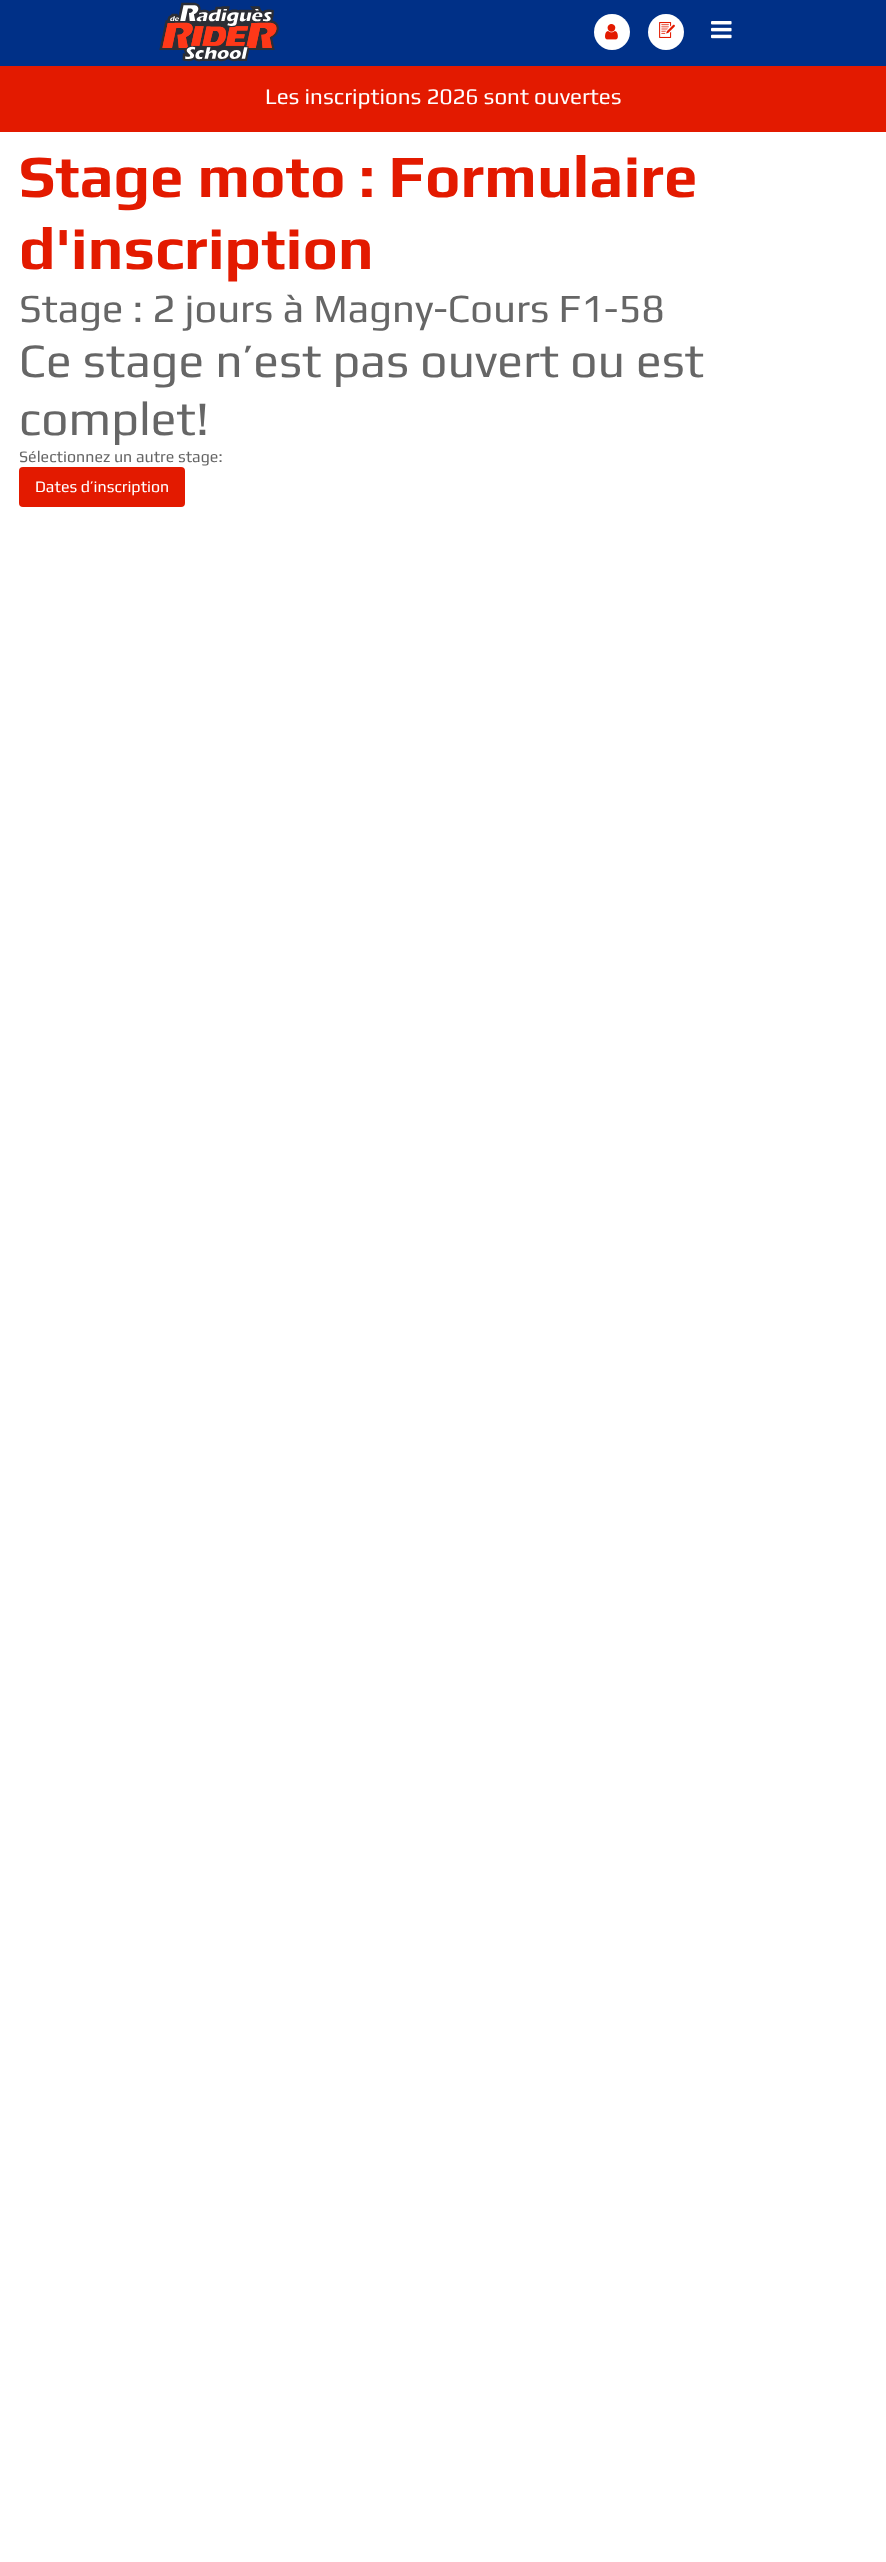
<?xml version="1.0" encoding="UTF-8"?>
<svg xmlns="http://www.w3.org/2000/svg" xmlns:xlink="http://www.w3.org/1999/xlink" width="886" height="2562">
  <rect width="100%" height="100%" fill="#ffffff" />
  <rect width="886" height="66" fill="#003087" />
  <image x="159" y="2" width="120" height="60" xlink:href="image1.png" />
  <circle cx="612" cy="32" r="18" fill="#ffffff" />
  <image x="605" y="24" width="13" height="16" xlink:href="image2.png" />
  <circle cx="666" cy="32" r="18" fill="#ffffff" />
  <image x="659" y="22" width="16" height="16" xlink:href="image3.png" />
  <image x="711" y="21" width="21" height="18" xlink:href="image4.png" />
  <rect y="66" width="886" height="66" fill="#e31a00" />
  <rect x="19" y="467" width="166" height="40" rx="4" fill="#e31a00" />
  <text x="265" y="104" style="font-family: Play; font-size: 22.4px; fill: #ffffff">Les inscriptions 2026 sont ouvertes</text>
  <text x="19" y="197" style="font-family: Play; font-size: 60px; font-weight: bold; fill: #e31a00">Stage moto : Formulaire</text>
  <text x="19" y="269" style="font-family: Play; font-size: 60px; font-weight: bold; fill: #e31a00">d'inscription</text>
  <text x="19" y="322" style="font-family: Play; font-size: 40px; fill: #666666">Stage : 2 jours à Magny-Cours F1-58</text>
  <text x="19" y="377" style="font-family: Play; font-size: 48px; fill: #666666">Ce stage n’est pas ouvert ou est</text>
  <text x="19" y="435" style="font-family: Play; font-size: 48px; fill: #666666">complet!</text>
  <text x="19" y="462" style="font-family: Play; font-size: 16px; fill: #666666">Sélectionnez un autre stage:</text>
  <text x="35" y="492" style="font-family: Play; font-size: 16px; fill: #ffffff">Dates d’inscription</text>
</svg>
